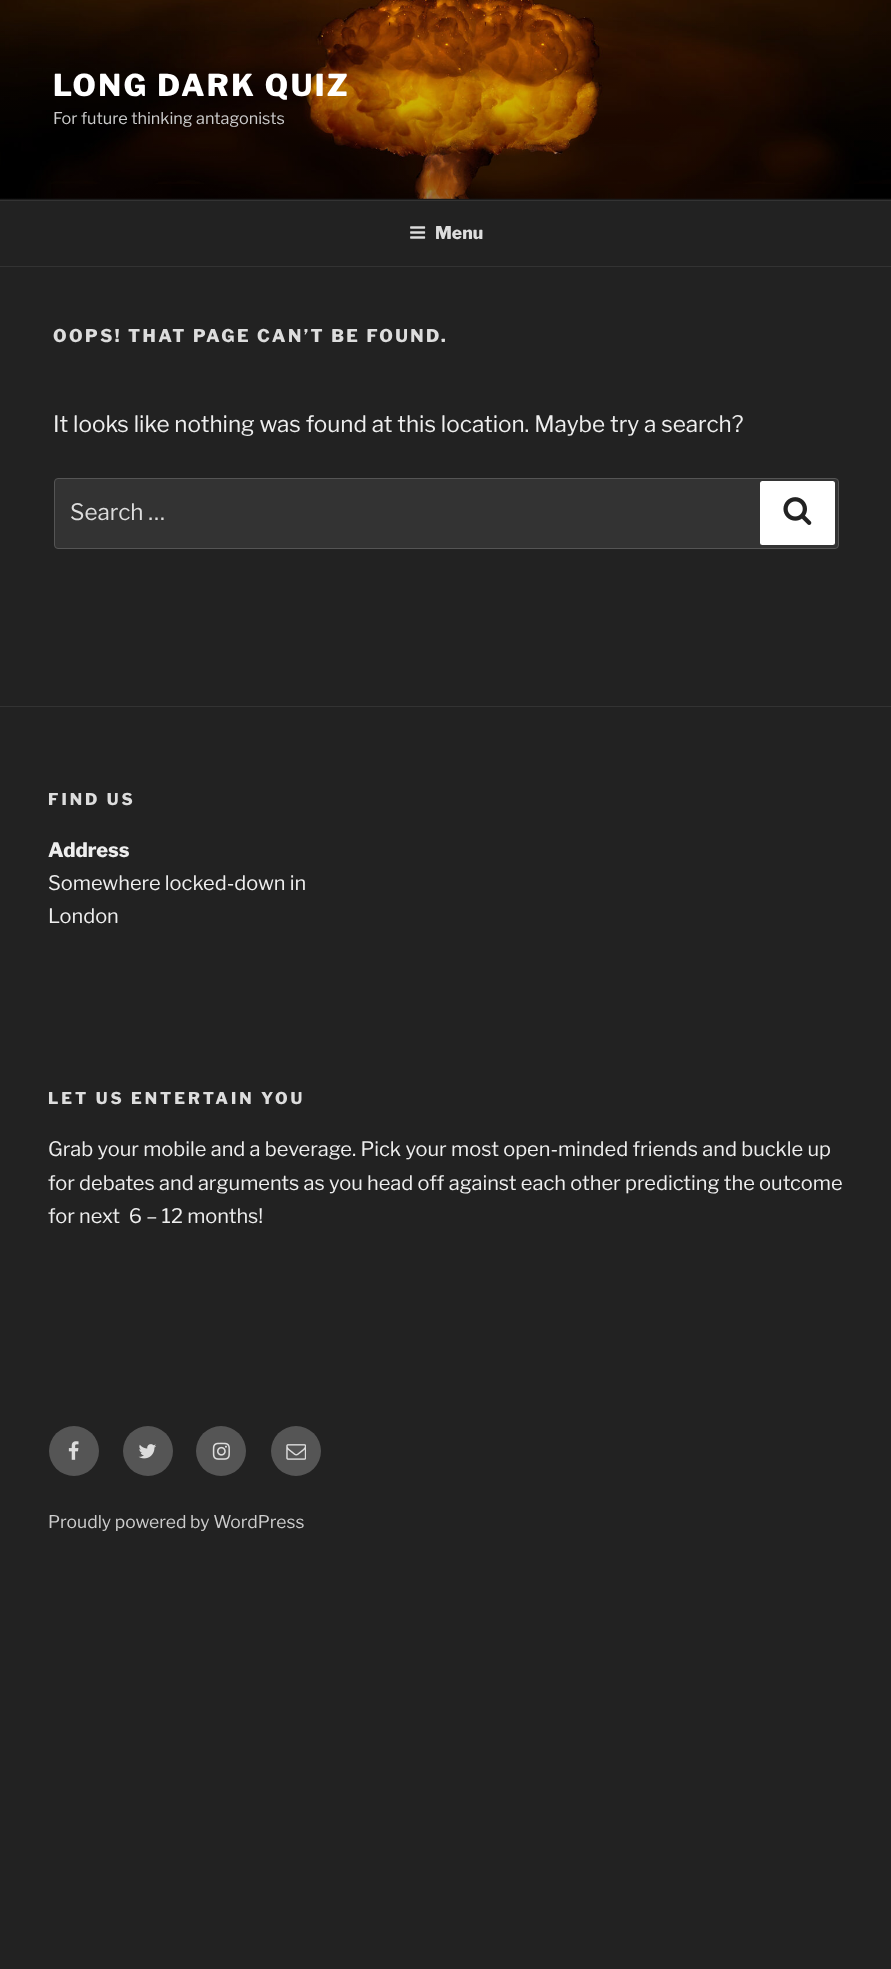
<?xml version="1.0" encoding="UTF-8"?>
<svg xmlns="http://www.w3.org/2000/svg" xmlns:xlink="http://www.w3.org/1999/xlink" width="891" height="1969">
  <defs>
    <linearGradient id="g1" gradientUnits="userSpaceOnUse" x1="446" y1="0" x2="446" y2="200"><stop offset="0" stop-color="#000000" stop-opacity="0" /><stop offset="0.75" stop-color="#000000" stop-opacity="0.3" /><stop offset="1" stop-color="#000000" stop-opacity="0.3" /></linearGradient>
  </defs>
  <rect width="100%" height="100%" fill="#222222" />
  <rect y="198" width="891" height="2" fill="#262626" />
  <image x="0" y="0" width="891" height="199" xlink:href="image1.png" />
  <rect y="11" width="891" height="189" fill="url(#g1)" />
  <rect y="200" width="891" height="1" fill="#333333" />
  <rect y="266" width="891" height="1" fill="#333333" />
  <image x="410" y="226" width="16" height="13" xlink:href="image2.png" />
  <rect x="54.5" y="478.5" width="784" height="70" rx="3.5" fill="#333333" stroke="#555555" />
  <rect x="760" y="481" width="75" height="64" rx="2.5" fill="#ffffff" />
  <image x="783" y="497" width="29" height="28" xlink:href="image3.png" />
  <rect y="706" width="891" height="1" fill="#333333" />
  <circle cx="74" cy="1451" r="25" fill="#555555" />
  <image x="68" y="1441" width="11" height="19" xlink:href="image4.png" />
  <circle cx="148" cy="1451" r="25" fill="#555555" />
  <image x="138" y="1444" width="18" height="15" xlink:href="image5.png" />
  <circle cx="221" cy="1451" r="25" fill="#555555" />
  <image x="212" y="1442" width="18" height="18" xlink:href="image6.png" />
  <circle cx="296" cy="1451" r="25" fill="#555555" />
  <image x="286" y="1444" width="20" height="16" xlink:href="image7.png" />
  <text x="53" y="96" style="font-family: Libre Franklin; font-size: 30px; font-weight: 100; letter-spacing: 2.4px; fill: #ffffff">LONG DARK QUIZ</text>
  <text x="53" y="124" style="font-family: 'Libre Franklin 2'; font-size: 16.25px; font-weight: 100; fill: #cccccc">For future thinking antagonists</text>
  <text x="435" y="239" style="font-family: Libre Franklin; font-size: 17.5px; font-weight: 100; fill: #dddddd">Menu</text>
  <text x="53" y="342" style="font-family: Libre Franklin; font-size: 17.5px; font-weight: 100; letter-spacing: 2.45px; fill: #dddddd">OOPS! THAT PAGE CAN’T BE FOUND.</text>
  <text x="53" y="432" style="font-family: 'Libre Franklin 2'; font-size: 22.5px; font-weight: 100; fill: #eeeeee">It looks like nothing was found at this location. Maybe try a search?</text>
  <text x="70" y="520" style="font-family: 'Libre Franklin 2'; font-size: 22.5px; font-weight: 100; fill: #dddddd">Search …</text>
  <text x="48" y="805" style="font-family: Libre Franklin; font-size: 16.25px; font-weight: 100; letter-spacing: 3px; fill: #dddddd">FIND US</text>
  <text x="48" y="857" style="font-family: Libre Franklin; font-size: 20px; font-weight: 100; fill: #eeeeee">Address</text>
  <text x="48" y="890" style="font-family: 'Libre Franklin 2'; font-size: 20px; font-weight: 100; fill: #eeeeee">Somewhere locked-down in</text>
  <text x="48" y="923" style="font-family: 'Libre Franklin 2'; font-size: 20px; font-weight: 100; fill: #eeeeee">London</text>
  <text x="48" y="1104" style="font-family: Libre Franklin; font-size: 16.25px; font-weight: 100; letter-spacing: 3px; fill: #dddddd">LET US ENTERTAIN YOU</text>
  <text x="48" y="1156" style="font-family: 'Libre Franklin 2'; font-size: 20px; font-weight: 100; fill: #eeeeee">Grab your mobile and a beverage. Pick your most open-minded friends and buckle up</text>
  <text x="48" y="1190" style="font-family: 'Libre Franklin 2'; font-size: 20px; font-weight: 100; fill: #eeeeee">for debates and arguments as you head off against each other predicting the outcome</text>
  <text x="48" y="1223" style="font-family: 'Libre Franklin 2'; font-size: 20px; font-weight: 100; fill: #eeeeee" xml:space="preserve">for next  6 – 12 months!</text>
  <text x="48" y="1528" style="font-family: 'Libre Franklin 2'; font-size: 17.5px; font-weight: 100; fill: #cccccc">Proudly powered by WordPress</text>
</svg>
